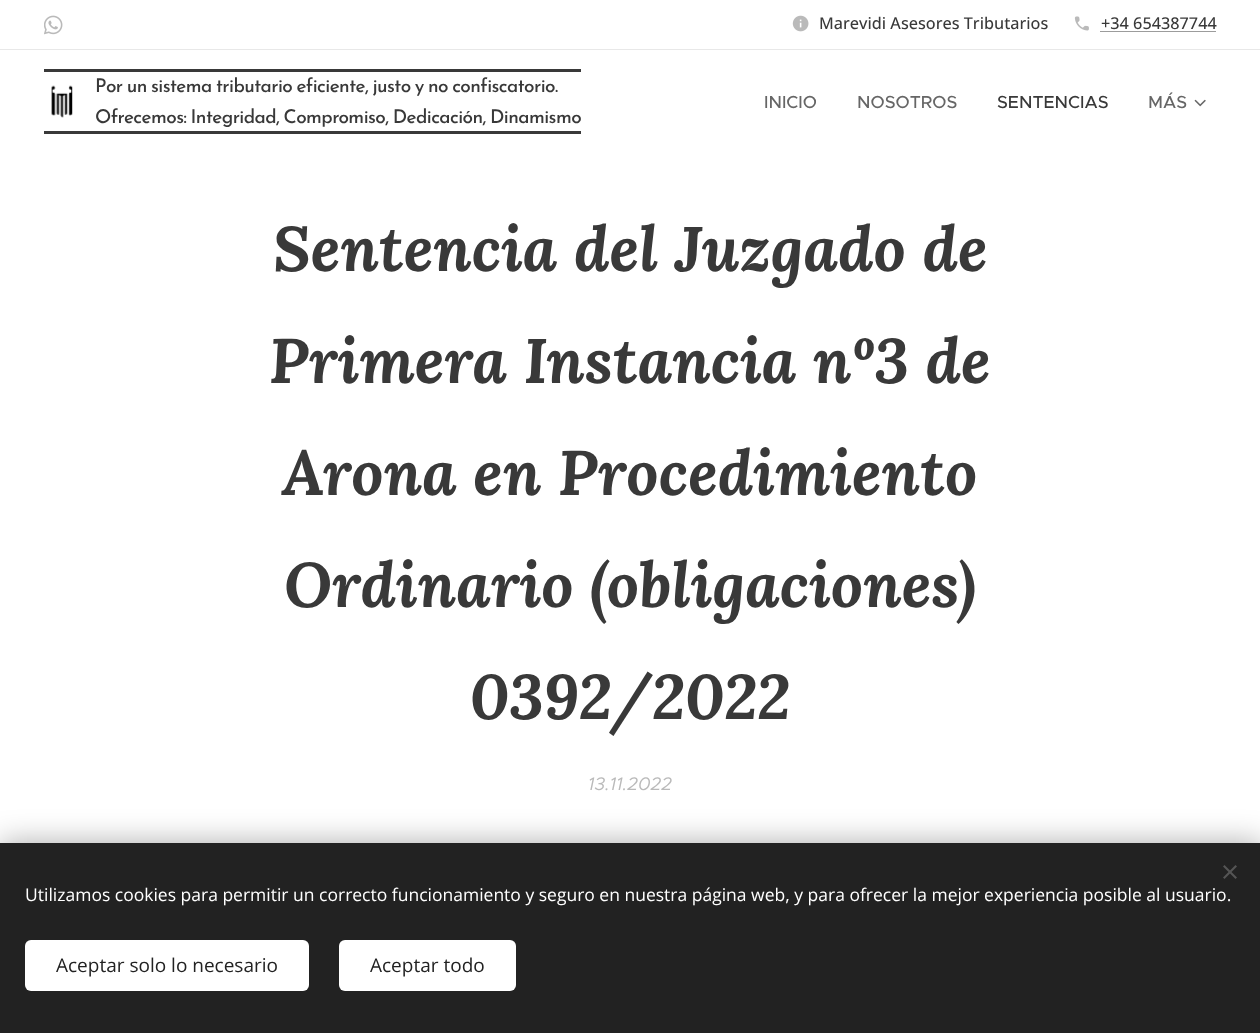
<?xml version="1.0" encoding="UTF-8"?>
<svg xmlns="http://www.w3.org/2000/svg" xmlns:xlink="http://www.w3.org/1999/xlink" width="1260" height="1033">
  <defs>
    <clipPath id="clip1"><rect x="91" y="71" width="490" height="60" /></clipPath>
  </defs>
  <rect width="100%" height="100%" fill="#ffffff" />
  <image x="44" y="15" width="19" height="20" xlink:href="image1.png" />
  <image x="792" y="15" width="17" height="17" xlink:href="image2.png" />
  <image x="1074" y="16" width="15" height="15" xlink:href="image3.png" />
  <rect x="1100" y="31" width="116" height="1" fill="#9c9c9c" />
  <rect y="49" width="1260" height="1" fill="#e8e8e8" />
  <rect x="44" y="69" width="537" height="3" fill="#393939" />
  <rect x="44" y="131" width="537" height="3" fill="#393939" />
  <image x="51" y="85" width="22" height="33" xlink:href="image4.png" />
  <image x="1194" y="99" width="12" height="8" xlink:href="image5.png" />
  <rect y="843" width="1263" height="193" fill="#000000" fill-opacity="0.33" filter="blur(15.5px)" />
  <rect y="843" width="1260" height="190" fill="#222222" />
  <path d="M 1223 877.5 l 12.5 -12.5 l 1.5 1.5 l -12.5 12.5 z" fill="#555555" />
  <path d="M 1224.5 865 l 12.5 12.5 l -1.5 1.5 l -12.5 -12.5 z" fill="#555555" />
  <rect x="25" y="940" width="284" height="51" rx="6" fill="#ffffff" />
  <rect x="339" y="940" width="177" height="51" rx="6" fill="#ffffff" />
  <text x="819" y="29" style="font-family: Open Sans; font-size: 16.25px; font-weight: 500; fill: #393939">Marevidi Asesores Tributarios</text>
  <text x="1101" y="29" style="font-family: Open Sans; font-size: 16.25px; font-weight: 500; fill: #393939">+34 654387744</text>
  <text x="95" y="92" word-spacing="-1.25" style="font-family: Josefin Sans; font-size: 19px; font-weight: 500; letter-spacing: -0.57px; fill: #393939">Por un sistema tributario eficiente, justo y no confiscatorio.</text>
  <g clip-path="url(#clip1)">
    <text x="95" y="123" word-spacing="-1.25" style="font-family: Josefin Sans; font-size: 19px; font-weight: 500; letter-spacing: -0.57px; fill: #393939">Ofrecemos: Integridad, Compromiso, Dedicación, Dinamismo</text>
  </g>
  <text x="764" y="108" style="font-family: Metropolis; font-size: 17.5px; font-weight: 500; fill: #666666">INICIO</text>
  <text x="857" y="108" style="font-family: Metropolis; font-size: 17.5px; font-weight: 500; fill: #666666">NOSOTROS</text>
  <text x="997" y="108" style="font-family: Metropolis; font-size: 17.5px; font-weight: 500; fill: #393939">SENTENCIAS</text>
  <text x="1148" y="108" style="font-family: Metropolis; font-size: 17.5px; font-weight: 500; fill: #666666">MÁS</text>
  <text x="273" y="271" style="font-family: Lora; font-size: 63px; font-weight: bold; font-style: italic; fill: #393939">Sentencia del Juzgado de</text>
  <text x="269" y="383" style="font-family: Lora; font-size: 63px; font-weight: bold; font-style: italic; fill: #393939">Primera Instancia nº3 de</text>
  <text x="282" y="495" style="font-family: Lora; font-size: 63px; font-weight: bold; font-style: italic; fill: #393939">Arona en Procedimiento</text>
  <text x="284" y="607" style="font-family: Lora; font-size: 63px; font-weight: bold; font-style: italic; fill: #393939">Ordinario (obligaciones)</text>
  <text x="470" y="719" style="font-family: Lora; font-size: 63px; font-weight: bold; font-style: italic; fill: #393939">0392/2022</text>
  <text x="588" y="790" style="font-family: Metropolis; font-size: 18.25px; font-style: italic; fill: #bababa">13.11.2022</text>
  <text x="25" y="901" style="font-family: Open Sans; font-size: 17.5px; fill: #ffffff">Utilizamos cookies para permitir un correcto funcionamiento y seguro en nuestra página web, y para ofrecer la mejor experiencia posible al usuario.</text>
  <text x="56" y="972" style="font-family: Open Sans; font-size: 19px; fill: #222222">Aceptar solo lo necesario</text>
  <text x="370" y="972" style="font-family: Open Sans; font-size: 19px; fill: #222222">Aceptar todo</text>
</svg>
